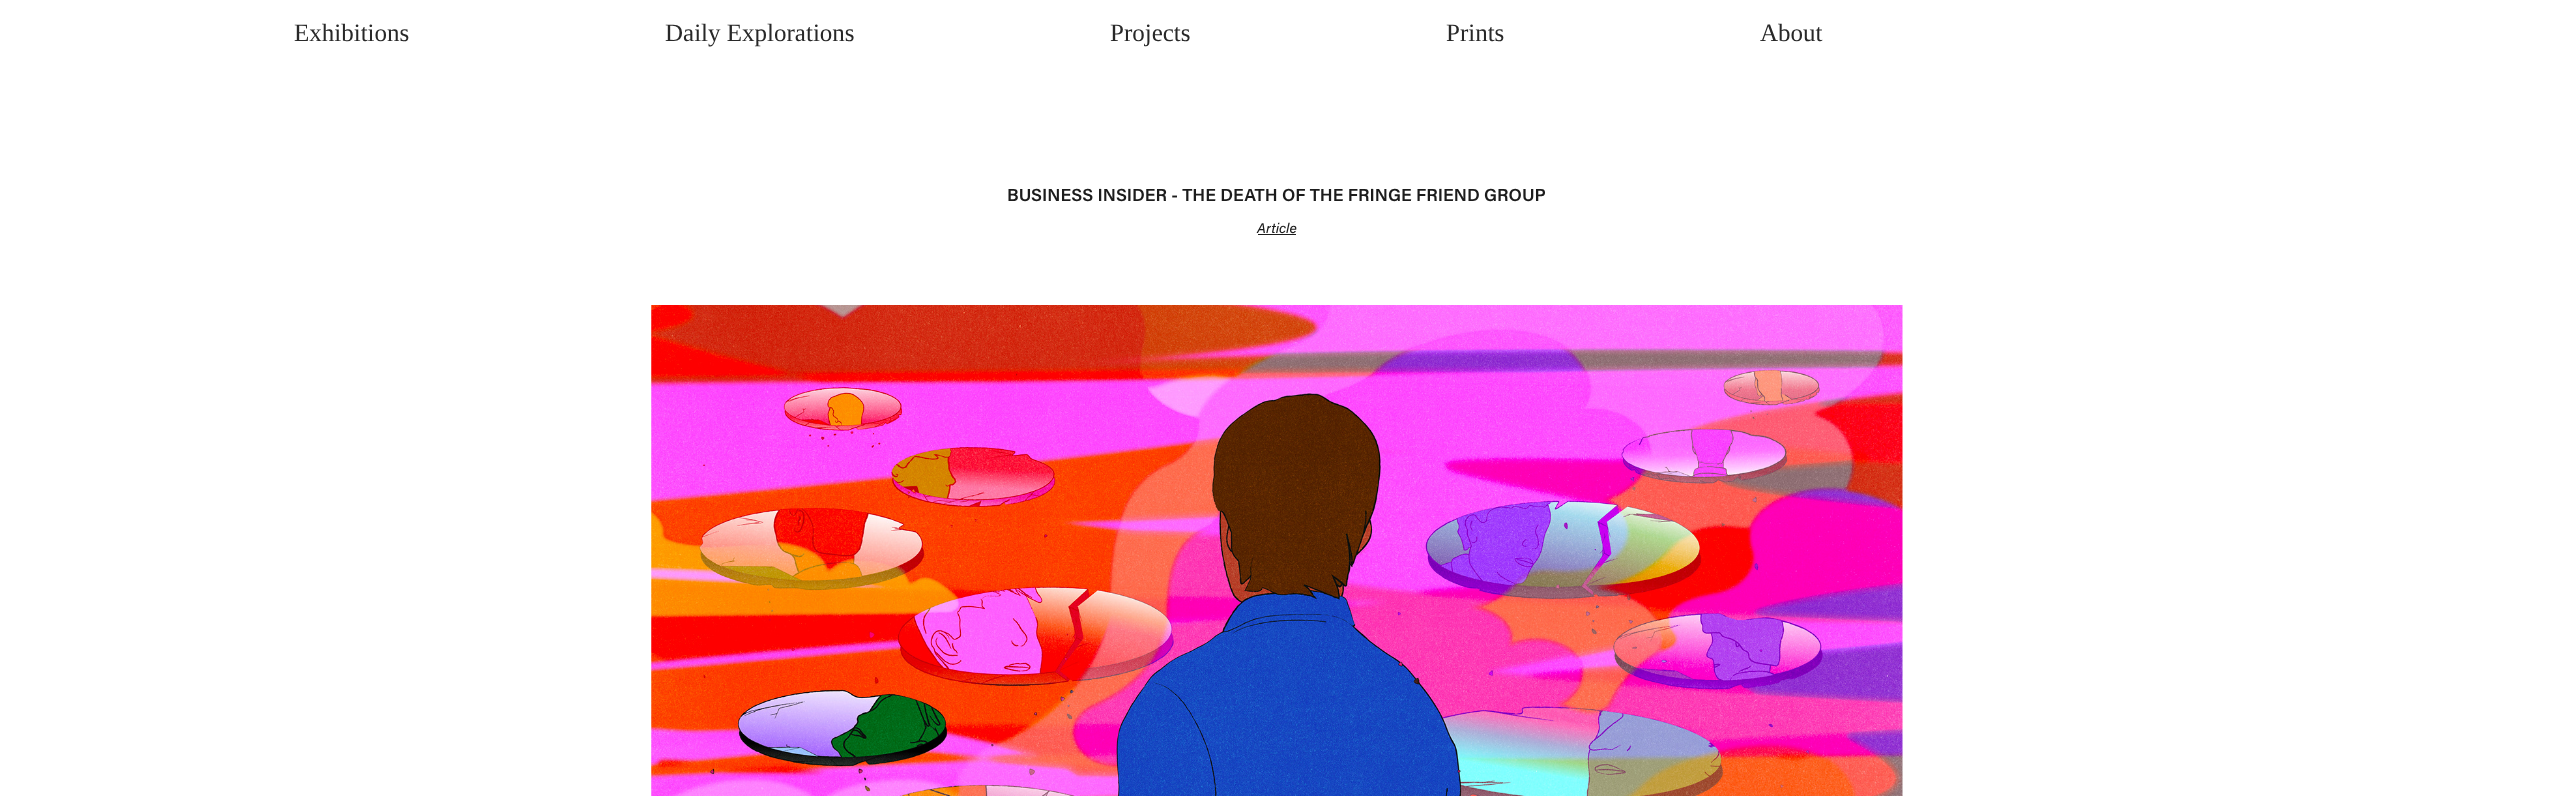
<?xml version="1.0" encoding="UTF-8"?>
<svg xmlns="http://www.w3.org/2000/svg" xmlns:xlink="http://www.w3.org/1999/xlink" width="2553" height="796">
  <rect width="100%" height="100%" fill="#ffffff" />
  <rect x="1258" y="234" width="38" height="1" fill="#1c1c1c" />
  <image x="651" y="305" width="1252" height="491" xlink:href="image1.png" />
  <text x="294" y="41" style="font-family: Liberation Serif; font-size: 25px; fill: #282828">Exhibitions</text>
  <text x="665" y="41" style="font-family: Liberation Serif; font-size: 25px; fill: #282828">Daily Explorations</text>
  <text x="1110" y="41" style="font-family: Liberation Serif; font-size: 25px; fill: #282828">Projects</text>
  <text x="1446" y="41" style="font-family: Liberation Serif; font-size: 25px; fill: #282828">Prints</text>
  <text x="1760" y="41" style="font-family: Liberation Serif; font-size: 25px; fill: #282828">About</text>
  <text x="1007" y="201" style="font-family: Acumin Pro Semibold; font-size: 17.5px; font-weight: 600; fill: #1c1c1c">BUSINESS INSIDER - THE DEATH OF THE FRINGE FRIEND GROUP</text>
  <text x="1257" y="233" style="font-family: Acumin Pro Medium; font-size: 14px; font-weight: 500; font-style: italic; fill: #1c1c1c">Article</text>
</svg>
